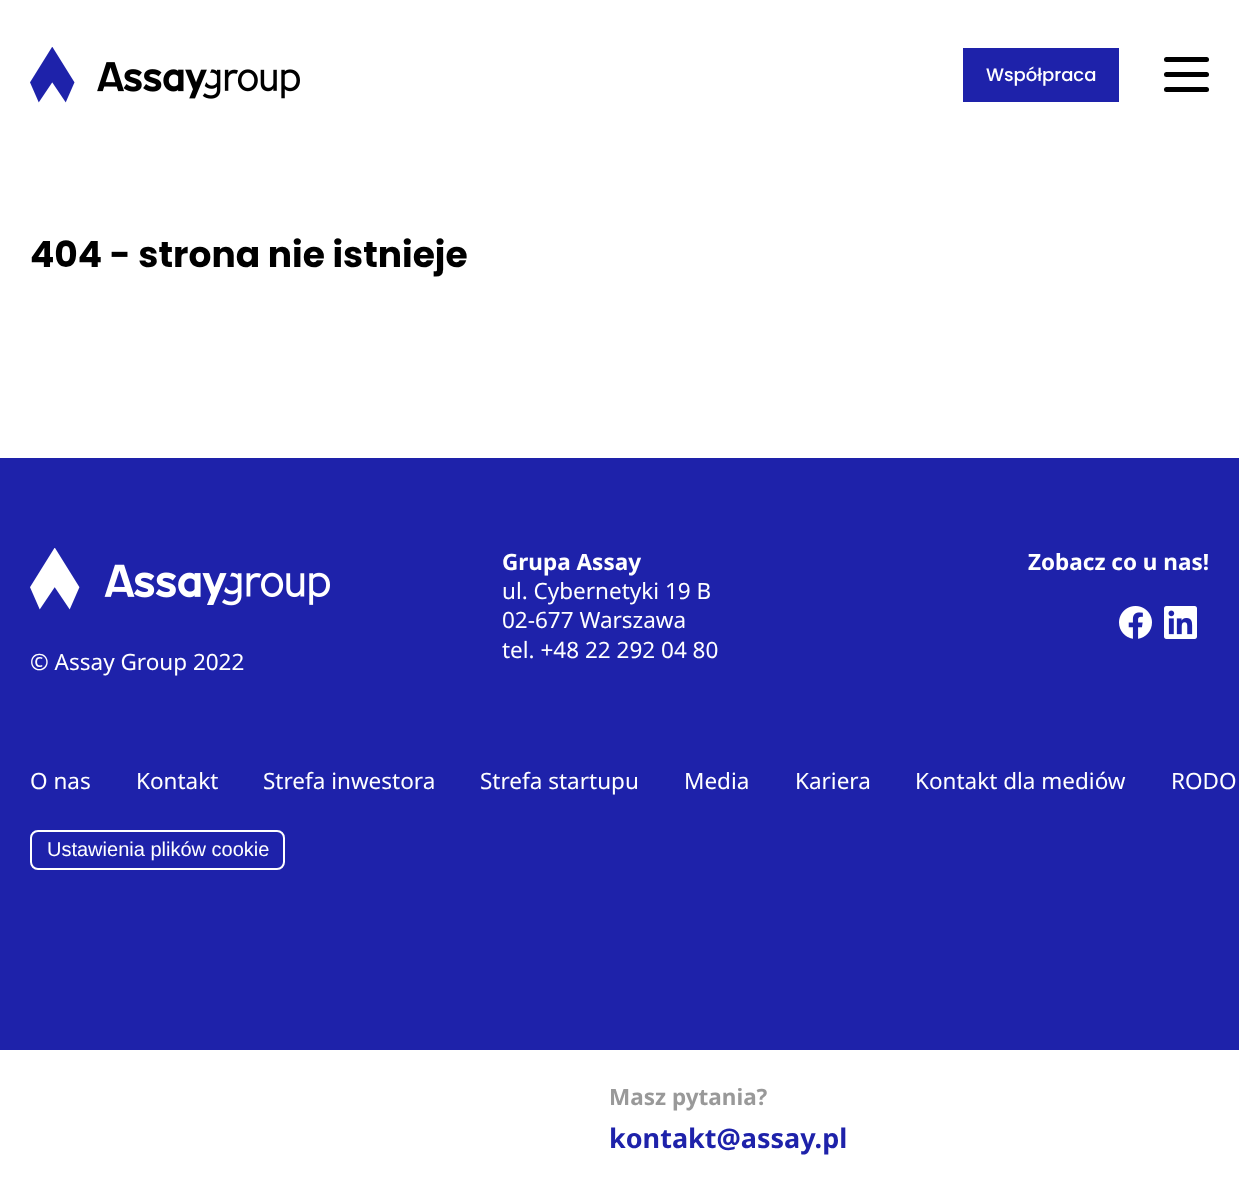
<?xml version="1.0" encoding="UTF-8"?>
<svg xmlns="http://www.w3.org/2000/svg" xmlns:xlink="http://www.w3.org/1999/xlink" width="1239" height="1185">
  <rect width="100%" height="100%" fill="#ffffff" />
  <image x="30" y="47" width="270" height="56" xlink:href="image1.png" />
  <rect x="963" y="48" width="156" height="54" fill="#1e22aa" />
  <rect x="1164" y="57" width="45" height="5" rx="2.5" fill="#000000" />
  <rect x="1164" y="72" width="45" height="5" rx="2.5" fill="#000000" />
  <rect x="1164" y="87" width="45" height="5" rx="2.5" fill="#000000" />
  <rect y="458" width="1239" height="592" fill="#1e22aa" />
  <image x="1119" y="606" width="33" height="33" xlink:href="image2.png" />
  <image x="1164" y="606" width="33" height="33" xlink:href="image3.png" />
  <image x="30" y="548" width="300" height="62" xlink:href="image4.png" />
  <rect x="31" y="831" width="253" height="38" rx="7" fill="none" stroke="#ffffff" stroke-width="2" />
  <text x="986" y="81" style="font-family: Poppins; font-size: 18px; font-weight: 500; fill: #ffffff">Współpraca</text>
  <text x="30" y="267" style="font-family: Poppins; font-size: 36px; font-weight: bold; fill: #000000">404 - strona nie istnieje</text>
  <text x="502" y="570" style="font-family: Noto Sans; font-size: 22.5px; font-weight: bold; fill: #ffffff">Grupa Assay</text>
  <text x="502" y="599" style="font-family: Noto Sans; font-size: 22.5px; fill: #ffffff">ul. Cybernetyki 19 B</text>
  <text x="502" y="628" style="font-family: Noto Sans; font-size: 22.5px; fill: #ffffff">02-677 Warszawa</text>
  <text x="502" y="658" style="font-family: Noto Sans; font-size: 22.5px; fill: #ffffff">tel. +48 22 292 04 80</text>
  <text x="1028" y="570" style="font-family: Noto Sans; font-size: 22.5px; font-weight: bold; fill: #ffffff">Zobacz co u nas!</text>
  <text x="30" y="670" style="font-family: Noto Sans; font-size: 22.5px; fill: #ffffff">© Assay Group 2022</text>
  <text x="30" y="789" style="font-family: Noto Sans; font-size: 22.5px; fill: #ffffff">O nas</text>
  <text x="136" y="789" style="font-family: Noto Sans; font-size: 22.5px; fill: #ffffff">Kontakt</text>
  <text x="263" y="789" style="font-family: Noto Sans; font-size: 22.5px; fill: #ffffff">Strefa inwestora</text>
  <text x="480" y="789" style="font-family: Noto Sans; font-size: 22.5px; fill: #ffffff">Strefa startupu</text>
  <text x="684" y="789" style="font-family: Noto Sans; font-size: 22.5px; fill: #ffffff">Media</text>
  <text x="795" y="789" style="font-family: Noto Sans; font-size: 22.5px; fill: #ffffff">Kariera</text>
  <text x="915" y="789" style="font-family: Noto Sans; font-size: 22.5px; fill: #ffffff">Kontakt dla mediów</text>
  <text x="1171" y="789" style="font-family: Noto Sans; font-size: 22.5px; fill: #ffffff">RODO</text>
  <text x="47" y="856" style="font-family: Liberation Sans; font-size: 20px; fill: #ffffff">Ustawienia plików cookie</text>
  <text x="609" y="1105" style="font-family: Noto Sans; font-size: 22.5px; font-weight: bold; fill: #999999">Masz pytania?</text>
  <text x="609" y="1148" style="font-family: Noto Sans; font-size: 27px; font-weight: bold; fill: #1e22aa">kontakt@assay.pl</text>
</svg>
